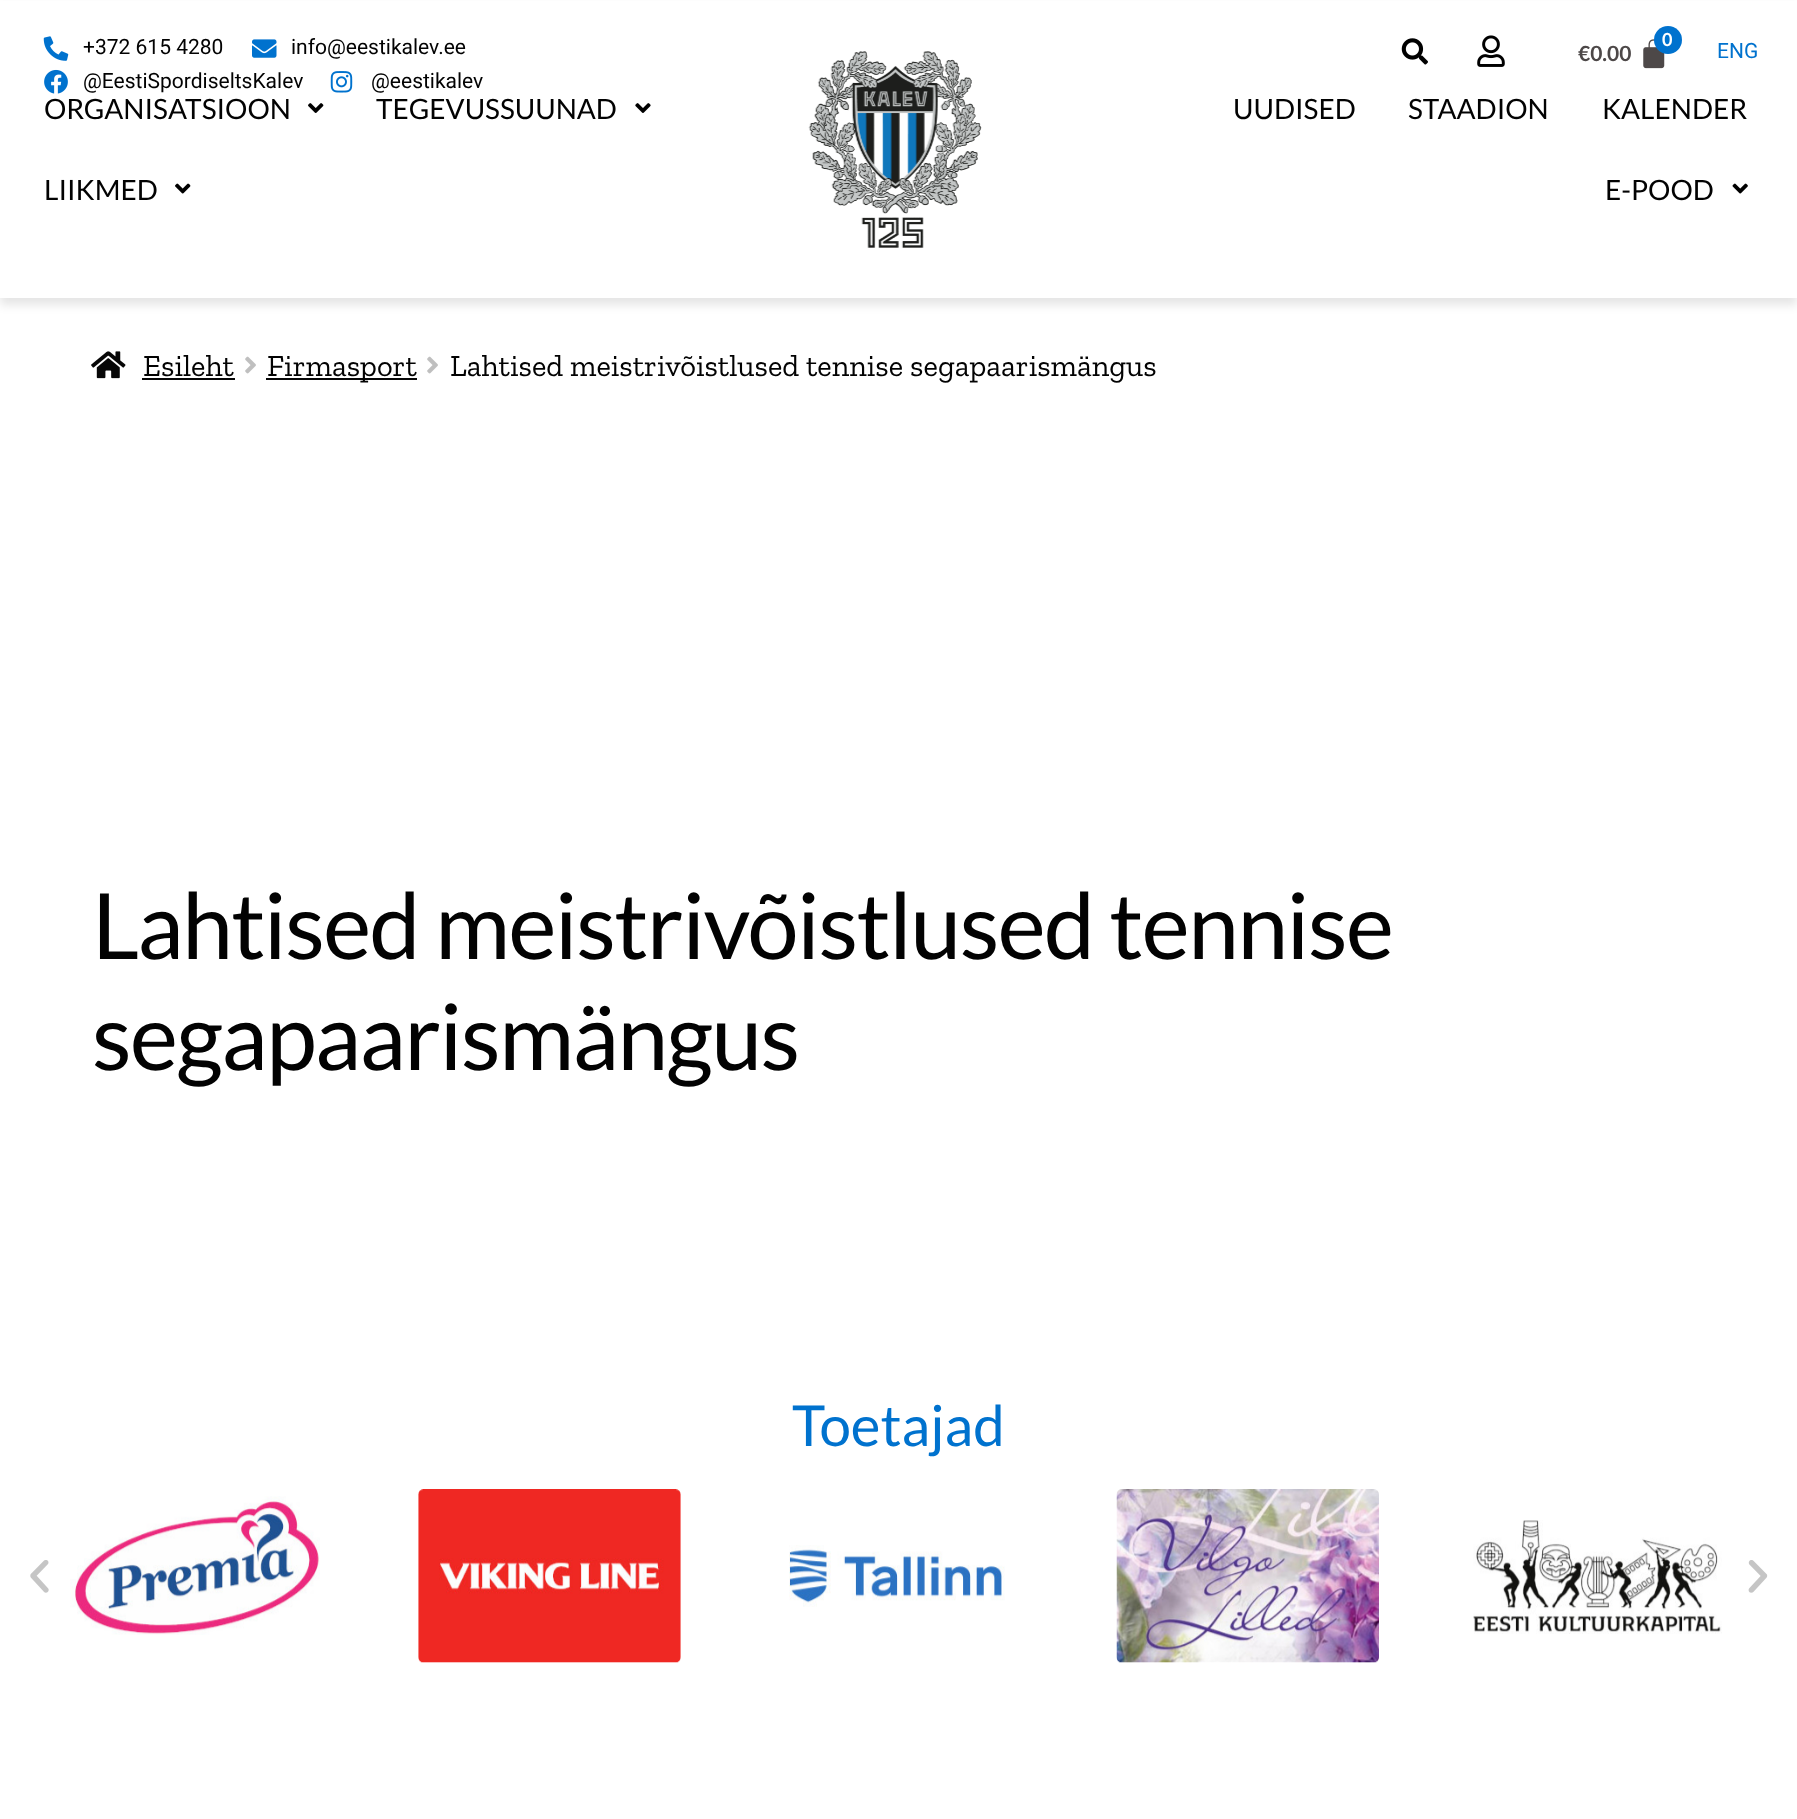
<?xml version="1.0" encoding="UTF-8"?>
<svg xmlns="http://www.w3.org/2000/svg" xmlns:xlink="http://www.w3.org/1999/xlink" width="1797" height="1819">
  <rect width="100%" height="100%" fill="#ffffff" />
  <rect y="7" width="1797" height="298" fill="#000000" fill-opacity="0.1" filter="blur(5px)" />
  <rect y="1" width="1797" height="297" fill="#ffffff" />
  <image x="43" y="36" width="26" height="25" xlink:href="image1.png" />
  <image x="252" y="39" width="25" height="19" xlink:href="image2.png" />
  <image x="44" y="69" width="24" height="25" xlink:href="image3.png" />
  <image x="330" y="71" width="23" height="22" xlink:href="image4.png" />
  <image x="1401" y="38" width="27" height="27" xlink:href="image5.png" />
  <image x="1477" y="35" width="28" height="32" xlink:href="image6.png" />
  <image x="1643" y="39" width="22" height="30" xlink:href="image7.png" />
  <circle cx="1668" cy="40" r="14" fill="#0072ce" />
  <image x="308" y="103" width="16" height="10" xlink:href="image8.png" />
  <image x="635" y="103" width="16" height="10" xlink:href="image9.png" />
  <image x="175" y="183" width="16" height="11" xlink:href="image10.png" />
  <image x="808" y="51" width="174" height="197" xlink:href="image11.png" />
  <image x="1732" y="183" width="16" height="11" xlink:href="image12.png" />
  <image x="91" y="351" width="35" height="28" xlink:href="image13.png" />
  <rect x="142" y="378" width="93" height="2" fill="#070707" />
  <image x="245" y="356" width="11" height="18" xlink:href="image14.png" />
  <rect x="266" y="378" width="151" height="2" fill="#070707" />
  <image x="427" y="356" width="11" height="18" xlink:href="image14.png" />
  <image x="30" y="1560" width="19" height="33" xlink:href="image15.png" />
  <image x="70" y="1496" width="250" height="139" xlink:href="image16.png" />
  <image x="418" y="1489" width="263" height="174" xlink:href="image17.png" />
  <image x="789" y="1545" width="216" height="62" xlink:href="image18.png" />
  <image x="1116" y="1489" width="263" height="174" xlink:href="image19.png" />
  <image x="1473" y="1520" width="249" height="114" xlink:href="image20.png" />
  <image x="1748" y="1560" width="20" height="33" xlink:href="image21.png" />
  <text x="83" y="54" style="font-family: Roboto; font-size: 21px; fill: #020202">+372 615 4280</text>
  <text x="291" y="54" style="font-family: Roboto; font-size: 21px; fill: #020202">info@eestikalev.ee</text>
  <text x="83" y="88" style="font-family: Roboto; font-size: 21px; fill: #020202">@EestiSpordiseltsKalev</text>
  <text x="371" y="88" style="font-family: Roboto; font-size: 21px; fill: #020202">@eestikalev</text>
  <text x="1662" y="46" style="font-family: Lato; font-size: 18px; font-weight: bold; fill: #ffffff">0</text>
  <text x="1578" y="61" style="font-family: Lato; font-size: 21px; font-weight: bold; fill: #4d4848">€0.00</text>
  <text x="1717" y="58" style="font-family: Roboto; font-size: 21px; fill: #0072ce">ENG</text>
  <text x="44" y="119" style="font-family: Lato; font-size: 28px; fill: #020202">ORGANISATSIOON</text>
  <text x="376" y="119" style="font-family: Lato; font-size: 28px; fill: #020202">TEGEVUSSUUNAD</text>
  <text x="44" y="200" style="font-family: Lato; font-size: 28px; fill: #020202">LIIKMED</text>
  <text x="1233" y="119" style="font-family: Lato; font-size: 28px; fill: #020202">UUDISED</text>
  <text x="1408" y="119" style="font-family: Lato; font-size: 28px; fill: #020202">STAADION</text>
  <text x="1602" y="119" style="font-family: Lato; font-size: 28px; fill: #020202">KALENDER</text>
  <text x="1605" y="200" style="font-family: Lato; font-size: 28px; fill: #020202">E-POOD</text>
  <text x="143" y="376" style="font-family: Zilla Slab; font-size: 30.6px; fill: #020202">Esileht</text>
  <text x="267" y="376" style="font-family: Zilla Slab; font-size: 30.6px; fill: #020202">Firmasport</text>
  <text x="450" y="376" style="font-family: Zilla Slab; font-size: 30.6px; fill: #020202">Lahtised meistrivõistlused tennise segapaarismängus</text>
  <text x="92" y="959" style="font-family: Lato; font-size: 91.6px; letter-spacing: -1.75px; fill: #020202">Lahtised meistrivõistlused tennise</text>
  <text x="92" y="1070" style="font-family: Lato; font-size: 91.6px; letter-spacing: -1.75px; fill: #020202">segapaarismängus</text>
  <text x="792" y="1446" style="font-family: Lato; font-size: 56.5px; fill: #0072ce">Toetajad</text>
</svg>
